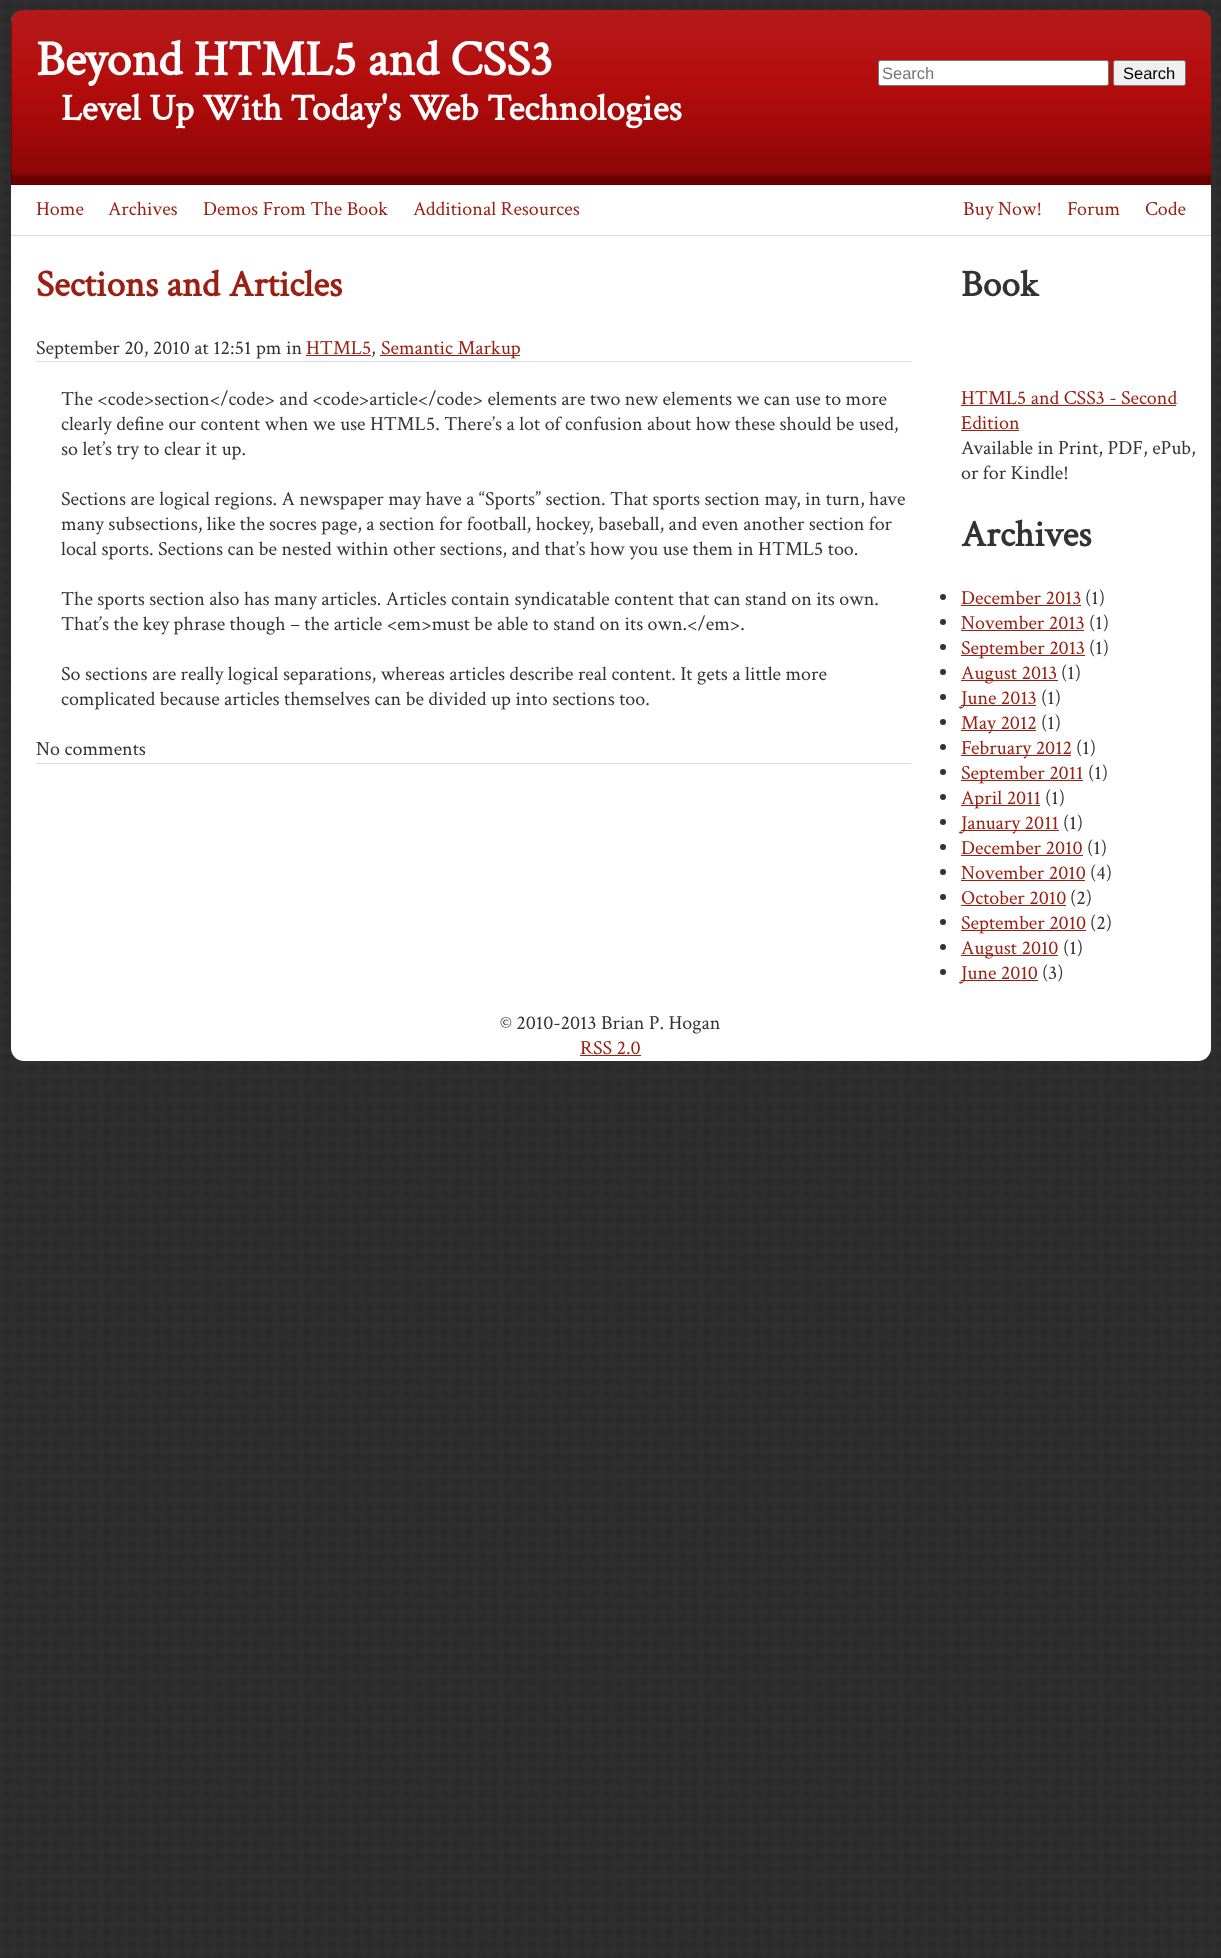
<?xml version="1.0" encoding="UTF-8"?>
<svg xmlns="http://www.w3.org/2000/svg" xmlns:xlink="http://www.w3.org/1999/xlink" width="1221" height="1958">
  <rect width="100%" height="100%" fill="#ffffff" />
  <image x="0" y="0" width="1221" height="1958" xlink:href="image1.png" />
  <rect x="11" y="10" width="1200" height="1051" rx="13" fill="#ffffff" />
  <path d="M 24 10 h 1174 c 7 0 13 6 13 13 v 162 h -1200 v -162 c 0 -7 6 -13 13 -13 z" fill="#330000" />
  <image x="11" y="10" width="1201" height="175" xlink:href="image2.png" />
  <rect x="878.5" y="60.5" width="230" height="25" rx="2" fill="#ffffff" stroke="#767676" />
  <rect x="1113.5" y="60.5" width="72" height="25" rx="2" fill="#efefef" stroke="#767676" />
  <rect x="11" y="235" width="1200" height="1" fill="#dddddd" />
  <rect x="36" y="361" width="875" height="1" fill="#dddddd" />
  <rect x="306" y="355" width="65" height="1" fill="#992012" />
  <rect x="380" y="355" width="140" height="1" fill="#992012" />
  <rect x="36" y="763" width="875" height="1" fill="#dddddd" />
  <rect x="961" y="405" width="215" height="1" fill="#992012" />
  <rect x="961" y="430" width="58" height="1" fill="#992012" />
  <circle cx="943" cy="597" r="3" fill="#333333" />
  <rect x="961" y="605" width="120" height="1" fill="#992012" />
  <circle cx="943" cy="622" r="3" fill="#333333" />
  <rect x="961" y="630" width="123" height="1" fill="#992012" />
  <circle cx="943" cy="647" r="3" fill="#333333" />
  <rect x="961" y="655" width="124" height="1" fill="#992012" />
  <circle cx="943" cy="672" r="3" fill="#333333" />
  <rect x="961" y="680" width="97" height="1" fill="#992012" />
  <circle cx="943" cy="697" r="3" fill="#333333" />
  <rect x="961" y="705" width="75" height="1" fill="#992012" />
  <circle cx="943" cy="722" r="3" fill="#333333" />
  <rect x="961" y="730" width="75" height="1" fill="#992012" />
  <circle cx="943" cy="747" r="3" fill="#333333" />
  <rect x="961" y="755" width="110" height="1" fill="#992012" />
  <circle cx="943" cy="772" r="3" fill="#333333" />
  <rect x="961" y="780" width="122" height="1" fill="#992012" />
  <circle cx="943" cy="797" r="3" fill="#333333" />
  <rect x="961" y="805" width="79" height="1" fill="#992012" />
  <circle cx="943" cy="822" r="3" fill="#333333" />
  <rect x="961" y="830" width="98" height="1" fill="#992012" />
  <circle cx="943" cy="847" r="3" fill="#333333" />
  <rect x="961" y="855" width="122" height="1" fill="#992012" />
  <circle cx="943" cy="872" r="3" fill="#333333" />
  <rect x="961" y="880" width="124" height="1" fill="#992012" />
  <circle cx="943" cy="897" r="3" fill="#333333" />
  <rect x="961" y="905" width="105" height="1" fill="#992012" />
  <circle cx="943" cy="922" r="3" fill="#333333" />
  <rect x="961" y="930" width="125" height="1" fill="#992012" />
  <circle cx="943" cy="947" r="3" fill="#333333" />
  <rect x="961" y="955" width="97" height="1" fill="#992012" />
  <circle cx="943" cy="972" r="3" fill="#333333" />
  <rect x="961" y="980" width="77" height="1" fill="#992012" />
  <rect x="580" y="1055" width="61" height="1" fill="#992012" />
  <text x="36" y="75" style="font-family: Crimson Text; font-size: 50px; font-weight: bold; fill: #ffffff">Beyond HTML5 and CSS3</text>
  <text x="882" y="79" style="font-family: Liberation Sans; font-size: 16.5px; fill: #757575">Search</text>
  <text x="1123" y="79" style="font-family: Liberation Sans; font-size: 16.5px; fill: #000000">Search</text>
  <text x="61" y="120" style="font-family: Crimson Text; font-size: 37.5px; font-weight: bold; fill: #ffffff">Level Up With Today's Web Technologies</text>
  <text x="36" y="215" style="font-family: Crimson Text; font-size: 20px; fill: #992012">Home</text>
  <text x="108" y="215" style="font-family: Crimson Text; font-size: 20px; fill: #992012">Archives</text>
  <text x="203" y="215" style="font-family: Crimson Text; font-size: 20px; fill: #992012">Demos From The Book</text>
  <text x="413" y="215" style="font-family: Crimson Text; font-size: 20px; fill: #992012">Additional Resources</text>
  <text x="963" y="215" style="font-family: Crimson Text; font-size: 20px; fill: #992012">Buy Now!</text>
  <text x="1067" y="215" style="font-family: Crimson Text; font-size: 20px; fill: #992012">Forum</text>
  <text x="1145" y="215" style="font-family: Crimson Text; font-size: 20px; fill: #992012">Code</text>
  <text x="36" y="296" style="font-family: Crimson Text; font-size: 37.5px; font-weight: bold; fill: #992012">Sections and Articles</text>
  <text x="36" y="354" style="font-family: Crimson Text; font-size: 20px; fill: #333333">September 20, 2010 at 12:51 pm in</text>
  <text x="306" y="354" style="font-family: Crimson Text; font-size: 20px; fill: #992012">HTML5</text>
  <text x="371" y="354" style="font-family: Crimson Text; font-size: 20px; fill: #333333">,</text>
  <text x="381" y="354" style="font-family: Crimson Text; font-size: 20px; fill: #992012">Semantic Markup</text>
  <text x="61" y="405" style="font-family: Crimson Text; font-size: 20px; fill: #333333">The &lt;code&gt;section&lt;/code&gt; and &lt;code&gt;article&lt;/code&gt; elements are two new elements we can use to more</text>
  <text x="61" y="430" style="font-family: Crimson Text; font-size: 20px; fill: #333333">clearly define our content when we use HTML5. There’s a lot of confusion about how these should be used,</text>
  <text x="61" y="455" style="font-family: Crimson Text; font-size: 20px; fill: #333333">so let’s try to clear it up.</text>
  <text x="61" y="505" style="font-family: Crimson Text; font-size: 20px; fill: #333333">Sections are logical regions. A newspaper may have a “Sports” section. That sports section may, in turn, have</text>
  <text x="61" y="530" style="font-family: Crimson Text; font-size: 20px; fill: #333333">many subsections, like the socres page, a section for football, hockey, baseball, and even another section for</text>
  <text x="61" y="555" style="font-family: Crimson Text; font-size: 20px; fill: #333333">local sports. Sections can be nested within other sections, and that’s how you use them in HTML5 too.</text>
  <text x="61" y="605" style="font-family: Crimson Text; font-size: 20px; fill: #333333">The sports section also has many articles. Articles contain syndicatable content that can stand on its own.</text>
  <text x="61" y="630" style="font-family: Crimson Text; font-size: 20px; fill: #333333">That’s the key phrase though – the article &lt;em&gt;must be able to stand on its own.&lt;/em&gt;.</text>
  <text x="61" y="680" style="font-family: Crimson Text; font-size: 20px; fill: #333333">So sections are really logical separations, whereas articles describe real content. It gets a little more</text>
  <text x="61" y="705" style="font-family: Crimson Text; font-size: 20px; fill: #333333">complicated because articles themselves can be divided up into sections too.</text>
  <text x="36" y="755" style="font-family: Crimson Text; font-size: 20px; fill: #333333">No comments</text>
  <text x="961" y="296" style="font-family: Crimson Text; font-size: 37.5px; font-weight: bold; fill: #333333">Book</text>
  <text x="961" y="404" style="font-family: Crimson Text; font-size: 20px; fill: #992012">HTML5 and CSS3 - Second</text>
  <text x="961" y="429" style="font-family: Crimson Text; font-size: 20px; fill: #992012">Edition</text>
  <text x="961" y="454" style="font-family: Crimson Text; font-size: 20px; fill: #333333">Available in Print, PDF, ePub,</text>
  <text x="961" y="479" style="font-family: Crimson Text; font-size: 20px; fill: #333333">or for Kindle!</text>
  <text x="961" y="546" style="font-family: Crimson Text; font-size: 37.5px; font-weight: bold; fill: #333333">Archives</text>
  <text x="961" y="604" style="font-family: Crimson Text; font-size: 20px; fill: #992012">December 2013</text>
  <text x="1085" y="604" style="font-family: Crimson Text; font-size: 20px; fill: #333333">(1)</text>
  <text x="961" y="629" style="font-family: Crimson Text; font-size: 20px; fill: #992012">November 2013</text>
  <text x="1089" y="629" style="font-family: Crimson Text; font-size: 20px; fill: #333333">(1)</text>
  <text x="961" y="654" style="font-family: Crimson Text; font-size: 20px; fill: #992012">September 2013</text>
  <text x="1089" y="654" style="font-family: Crimson Text; font-size: 20px; fill: #333333">(1)</text>
  <text x="961" y="679" style="font-family: Crimson Text; font-size: 20px; fill: #992012">August 2013</text>
  <text x="1061" y="679" style="font-family: Crimson Text; font-size: 20px; fill: #333333">(1)</text>
  <text x="961" y="704" style="font-family: Crimson Text; font-size: 20px; fill: #992012">June 2013</text>
  <text x="1041" y="704" style="font-family: Crimson Text; font-size: 20px; fill: #333333">(1)</text>
  <text x="961" y="729" style="font-family: Crimson Text; font-size: 20px; fill: #992012">May 2012</text>
  <text x="1041" y="729" style="font-family: Crimson Text; font-size: 20px; fill: #333333">(1)</text>
  <text x="961" y="754" style="font-family: Crimson Text; font-size: 20px; fill: #992012">February 2012</text>
  <text x="1076" y="754" style="font-family: Crimson Text; font-size: 20px; fill: #333333">(1)</text>
  <text x="961" y="779" style="font-family: Crimson Text; font-size: 20px; fill: #992012">September 2011</text>
  <text x="1088" y="779" style="font-family: Crimson Text; font-size: 20px; fill: #333333">(1)</text>
  <text x="961" y="804" style="font-family: Crimson Text; font-size: 20px; fill: #992012">April 2011</text>
  <text x="1045" y="804" style="font-family: Crimson Text; font-size: 20px; fill: #333333">(1)</text>
  <text x="961" y="829" style="font-family: Crimson Text; font-size: 20px; fill: #992012">January 2011</text>
  <text x="1063" y="829" style="font-family: Crimson Text; font-size: 20px; fill: #333333">(1)</text>
  <text x="961" y="854" style="font-family: Crimson Text; font-size: 20px; fill: #992012">December 2010</text>
  <text x="1087" y="854" style="font-family: Crimson Text; font-size: 20px; fill: #333333">(1)</text>
  <text x="961" y="879" style="font-family: Crimson Text; font-size: 20px; fill: #992012">November 2010</text>
  <text x="1090" y="879" style="font-family: Crimson Text; font-size: 20px; fill: #333333">(4)</text>
  <text x="961" y="904" style="font-family: Crimson Text; font-size: 20px; fill: #992012">October 2010</text>
  <text x="1070" y="904" style="font-family: Crimson Text; font-size: 20px; fill: #333333">(2)</text>
  <text x="961" y="929" style="font-family: Crimson Text; font-size: 20px; fill: #992012">September 2010</text>
  <text x="1090" y="929" style="font-family: Crimson Text; font-size: 20px; fill: #333333">(2)</text>
  <text x="961" y="954" style="font-family: Crimson Text; font-size: 20px; fill: #992012">August 2010</text>
  <text x="1063" y="954" style="font-family: Crimson Text; font-size: 20px; fill: #333333">(1)</text>
  <text x="961" y="979" style="font-family: Crimson Text; font-size: 20px; fill: #992012">June 2010</text>
  <text x="1042" y="979" style="font-family: Crimson Text; font-size: 20px; fill: #333333">(3)</text>
  <text x="500" y="1029" style="font-family: Crimson Text; font-size: 20px; fill: #333333">© 2010-2013 Brian P. Hogan</text>
  <text x="580" y="1054" style="font-family: Crimson Text; font-size: 20px; fill: #992012">RSS 2.0</text>
</svg>
